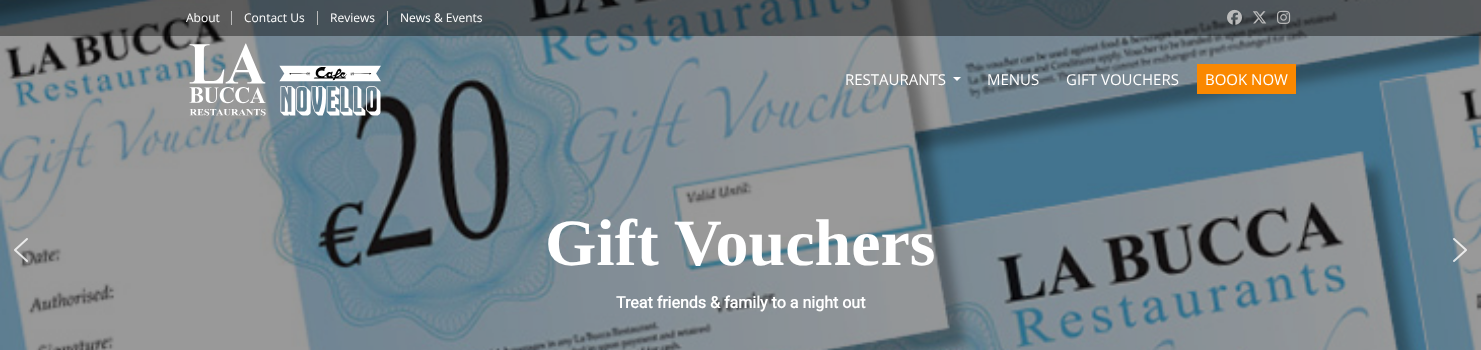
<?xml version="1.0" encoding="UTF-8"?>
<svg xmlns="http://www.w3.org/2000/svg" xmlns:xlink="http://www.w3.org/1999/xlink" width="1481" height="350">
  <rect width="100%" height="100%" fill="#000000" />
  <image x="0" y="0" width="1481" height="350" xlink:href="image6.png" />
  <rect width="1481" height="36" fill="#000000" fill-opacity="0.4" />
  <rect x="231" y="11" width="1" height="14" fill="#bbbbbb" />
  <rect x="317" y="11" width="1" height="14" fill="#bbbbbb" />
  <rect x="387" y="11" width="1" height="14" fill="#bbbbbb" />
  <image x="1227" y="9" width="15" height="16" xlink:href="image1.png" />
  <image x="1253" y="11" width="14" height="13" xlink:href="image2.png" />
  <image x="1277" y="10" width="14" height="14" xlink:href="image3.png" />
  <image x="189" y="43" width="192" height="73" xlink:href="image4.png" />
  <path d="M 953 77 h 8 l -4 4 z" fill="#ffffff" />
  <rect x="1197" y="64" width="99" height="30" fill="#fa8800" />
  <image x="14" y="238" width="14" height="24" xlink:href="image5.png" />
  <image x="1453" y="238" width="14" height="24" xlink:href="image7.png" />
  <text x="186" y="22" style="font-family: Open Sans; font-size: 12px; fill: #ffffff">About</text>
  <text x="244" y="22" style="font-family: Open Sans; font-size: 12px; fill: #ffffff">Contact Us</text>
  <text x="330" y="22" style="font-family: Open Sans; font-size: 12px; fill: #ffffff">Reviews</text>
  <text x="400" y="22" style="font-family: Open Sans; font-size: 12px; fill: #ffffff">News &amp; Events</text>
  <text x="845" y="85" style="font-family: Open Sans; font-size: 15px; fill: #ffffff">RESTAURANTS</text>
  <text x="987" y="85" style="font-family: Open Sans; font-size: 15px; fill: #ffffff">MENUS</text>
  <text x="1066" y="85" style="font-family: Open Sans; font-size: 15px; fill: #ffffff">GIFT VOUCHERS</text>
  <text x="1205" y="85" style="font-family: Open Sans; font-size: 15px; fill: #ffffff">BOOK NOW</text>
  <text x="545" y="265" style="font-family: Liberation Serif; font-size: 66px; font-weight: bold; fill: #ffffff">Gift Vouchers</text>
  <text x="616" y="308" style="font-family: Roboto; font-size: 16px; font-weight: bold; fill: #ffffff">Treat friends &amp; family to a night out</text>
</svg>
